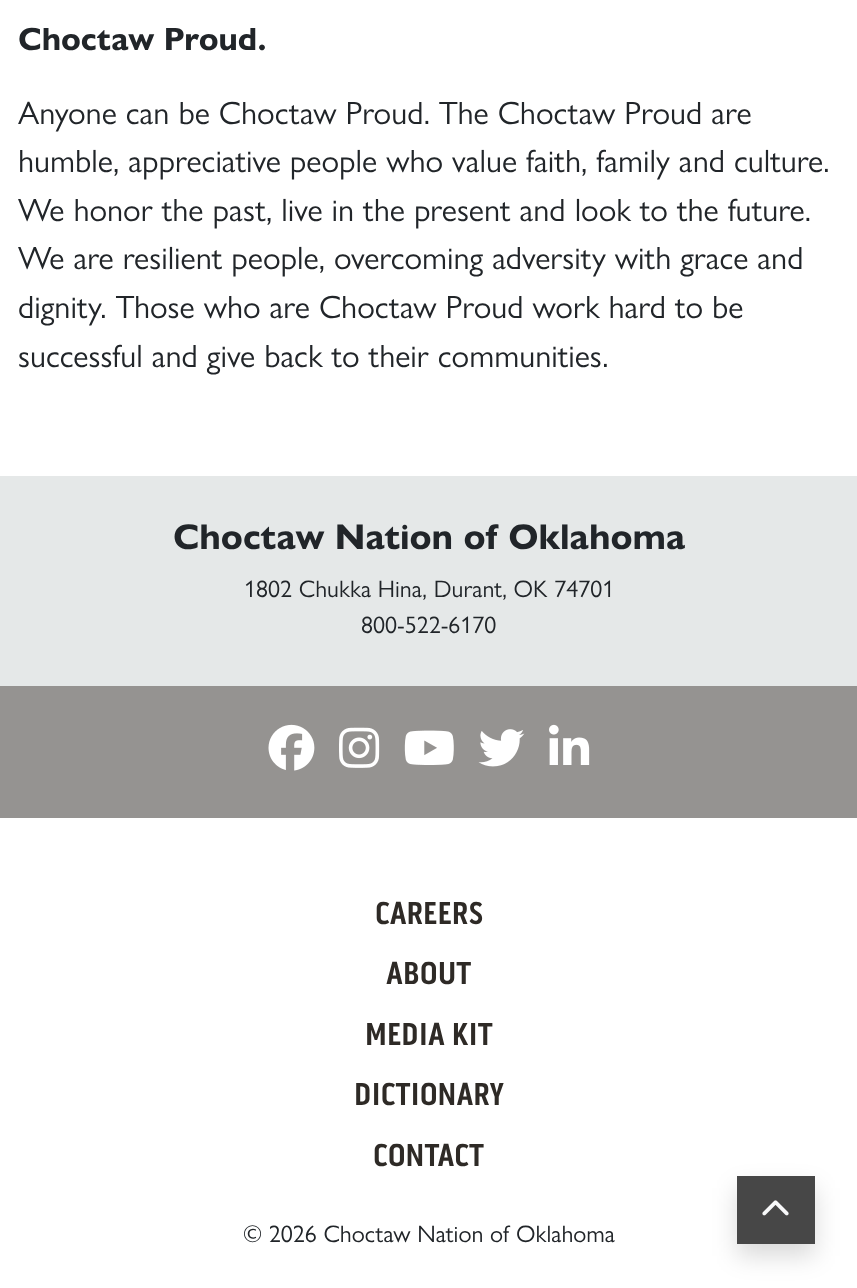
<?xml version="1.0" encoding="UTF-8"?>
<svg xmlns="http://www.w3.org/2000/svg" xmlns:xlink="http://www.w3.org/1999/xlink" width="857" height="1288">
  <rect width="100%" height="100%" fill="#ffffff" />
  <rect y="476" width="857" height="210" fill="#e5e8e8" />
  <rect y="686" width="857" height="132" fill="#959391" />
  <image x="268" y="724" width="47" height="47" xlink:href="image1.png" />
  <image x="339" y="727" width="41" height="41" xlink:href="image2.png" />
  <image x="404" y="730" width="50" height="35" xlink:href="image3.png" />
  <image x="478" y="729" width="47" height="38" xlink:href="image4.png" />
  <image x="549" y="724" width="41" height="41" xlink:href="image5.png" />
  <rect x="737" y="1188" width="78" height="68" fill="#000000" fill-opacity="0.15" filter="blur(12px)" />
  <rect x="737" y="1176" width="78" height="68" fill="#474747" />
  <image x="762" y="1200" width="27" height="16" xlink:href="image6.png" />
  <text x="18" y="50" style="font-family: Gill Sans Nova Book; font-size: 32.4px; font-weight: bold; fill: #212529">Choctaw Proud.</text>
  <text x="18" y="124" style="font-family: Gill Sans Nova Book; font-size: 32.4px; fill: #212529">Anyone can be Choctaw Proud. The Choctaw Proud are</text>
  <text x="18" y="172" style="font-family: Gill Sans Nova Book; font-size: 32.4px; fill: #212529">humble, appreciative people who value faith, family and culture.</text>
  <text x="18" y="221" style="font-family: Gill Sans Nova Book; font-size: 32.4px; fill: #212529">We honor the past, live in the present and look to the future.</text>
  <text x="18" y="269" style="font-family: Gill Sans Nova Book; font-size: 32.4px; fill: #212529">We are resilient people, overcoming adversity with grace and</text>
  <text x="18" y="318" style="font-family: Gill Sans Nova Book; font-size: 32.4px; fill: #212529">dignity. Those who are Choctaw Proud work hard to be</text>
  <text x="18" y="367" style="font-family: Gill Sans Nova Book; font-size: 32.4px; fill: #212529">successful and give back to their communities.</text>
  <text x="173" y="549" style="font-family: Gill Sans Nova Book; font-size: 36px; font-weight: bold; fill: #212529">Choctaw Nation of Oklahoma</text>
  <text x="244" y="597" style="font-family: Gill Sans Nova Book; font-size: 24px; fill: #212529">1802 Chukka Hina, Durant, OK 74701</text>
  <text x="361" y="633" style="font-family: Gill Sans Nova Book; font-size: 24px; fill: #212529">800-522-6170</text>
  <text x="375" y="924" style="font-family: 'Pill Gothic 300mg'; font-size: 32.4px; font-weight: bold; fill: #2e2a26">CAREERS</text>
  <text x="386" y="984" style="font-family: 'Pill Gothic 300mg'; font-size: 32.4px; font-weight: bold; fill: #2e2a26">ABOUT</text>
  <text x="365" y="1045" style="font-family: 'Pill Gothic 300mg'; font-size: 32.4px; font-weight: bold; fill: #2e2a26">MEDIA KIT</text>
  <text x="354" y="1105" style="font-family: 'Pill Gothic 300mg'; font-size: 32.4px; font-weight: bold; fill: #2e2a26">DICTIONARY</text>
  <text x="373" y="1166" style="font-family: 'Pill Gothic 300mg'; font-size: 32.4px; font-weight: bold; fill: #2e2a26">CONTACT</text>
  <text x="243" y="1242" style="font-family: Gill Sans Nova Book; font-size: 24px; fill: #212529">© 2026 Choctaw Nation of Oklahoma</text>
</svg>
